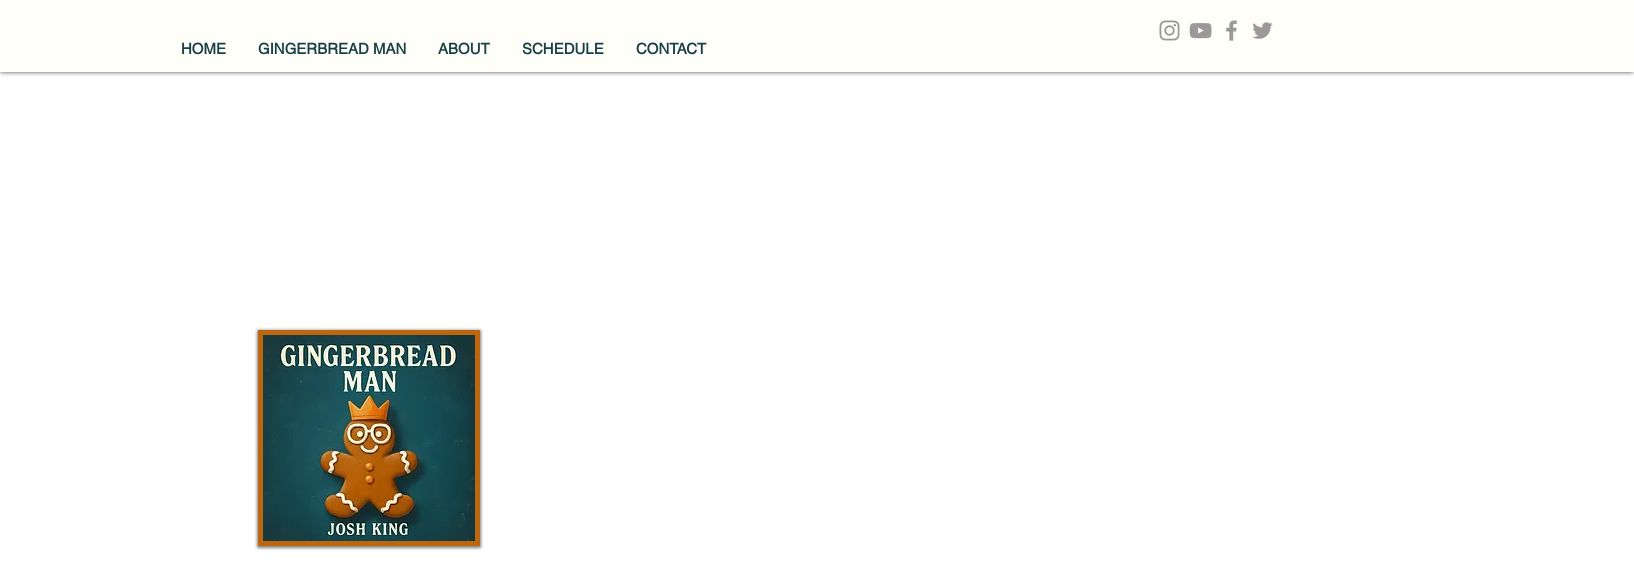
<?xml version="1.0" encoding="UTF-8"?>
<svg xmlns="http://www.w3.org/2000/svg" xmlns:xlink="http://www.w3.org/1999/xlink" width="1634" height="575">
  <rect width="100%" height="100%" fill="#ffffff" />
  <rect width="1634" height="72" fill="#000000" fill-opacity="0.7" filter="blur(2.5px)" />
  <rect width="1634" height="72" fill="#fffef9" />
  <image x="1159" y="20" width="21" height="21" xlink:href="image1.png" />
  <image x="1189" y="22" width="23" height="17" xlink:href="image2.png" />
  <image x="1226" y="20" width="11" height="21" xlink:href="image3.png" />
  <image x="1252" y="22" width="21" height="17" xlink:href="image4.png" />
  <rect x="322" y="266" width="95" height="2" fill="#fffef9" />
  <rect x="223" y="294" width="293" height="2" fill="#fffef9" />
  <rect x="248" y="322" width="243" height="2" fill="#fffef9" />
  <rect x="257" y="330" width="224" height="218" fill="#000000" fill-opacity="0.5" filter="blur(1.5px)" />
  <rect x="258" y="330" width="222" height="216" fill="#bc6710" />
  <image x="263" y="335" width="212" height="206" xlink:href="image5.png" />
  <text x="181" y="54" style="font-family: helvetica; font-size: 15px; font-weight: bold; fill: #174147">HOME</text>
  <text x="258" y="54" style="font-family: helvetica; font-size: 15px; font-weight: bold; fill: #174147">GINGERBREAD MAN</text>
  <text x="438" y="54" style="font-family: helvetica; font-size: 15px; font-weight: bold; fill: #174147">ABOUT</text>
  <text x="522" y="54" style="font-family: helvetica; font-size: 15px; font-weight: bold; fill: #174147">SCHEDULE</text>
  <text x="636" y="54" style="font-family: helvetica; font-size: 15px; font-weight: bold; fill: #174147">CONTACT</text>
</svg>
